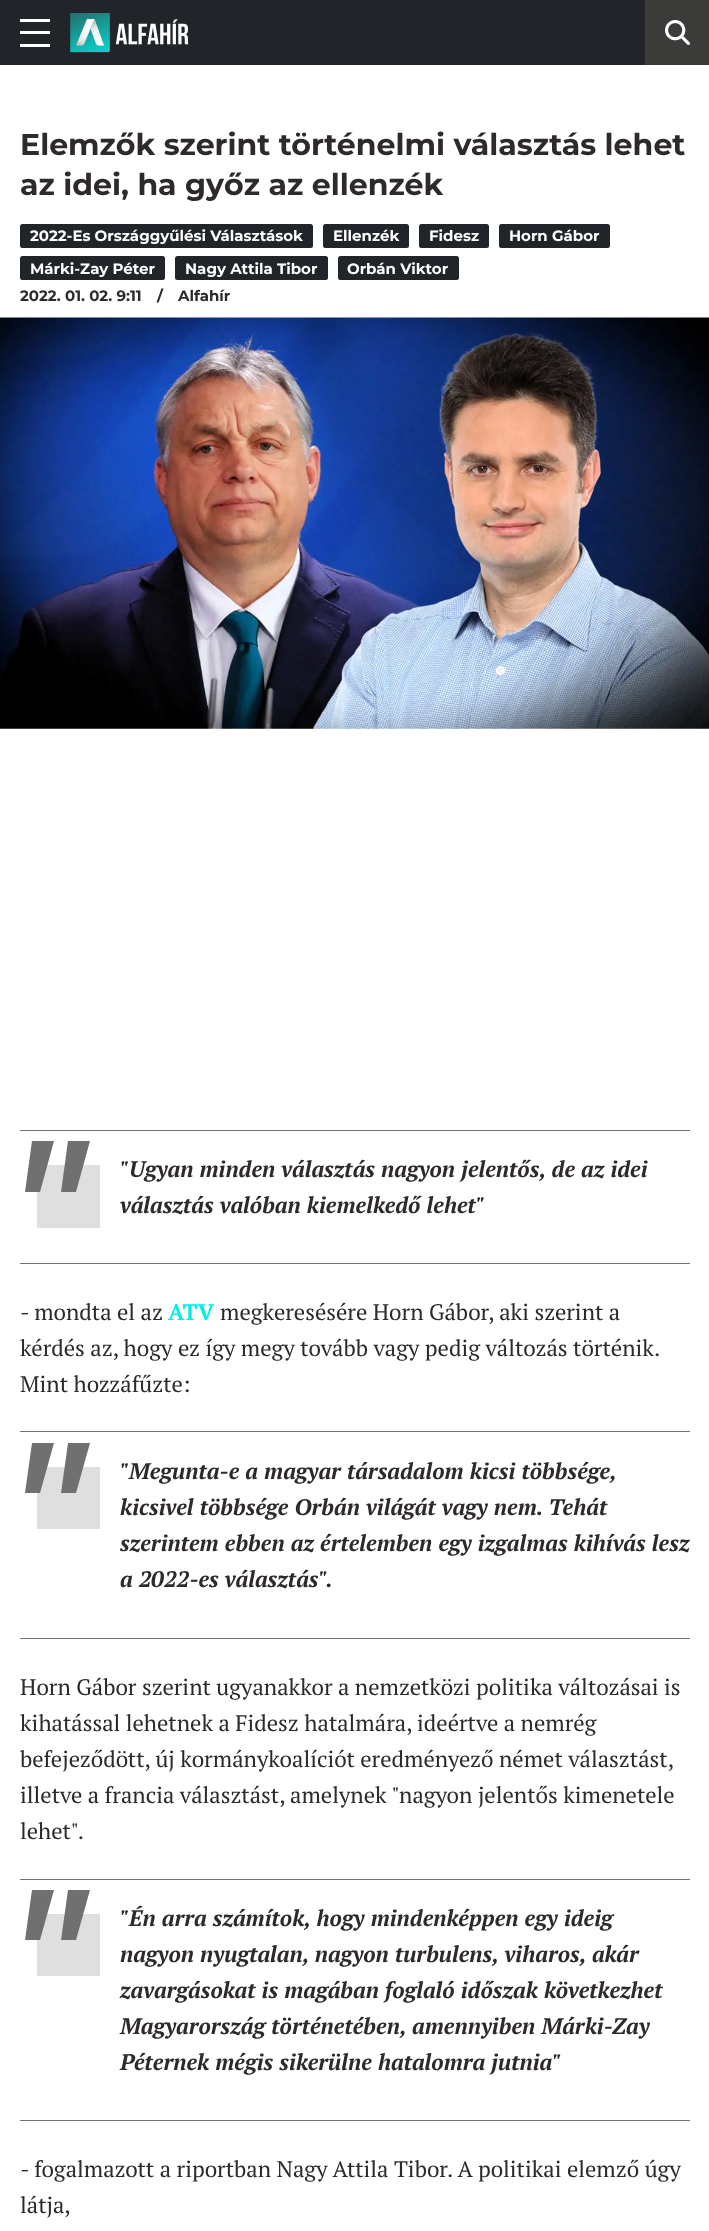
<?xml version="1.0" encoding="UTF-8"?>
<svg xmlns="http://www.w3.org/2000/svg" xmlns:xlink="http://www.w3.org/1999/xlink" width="709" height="2231">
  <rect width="100%" height="100%" fill="#ffffff" />
  <rect width="645" height="65" fill="#212529" />
  <rect x="20" y="19" width="30" height="3" fill="#ffffff" />
  <rect x="20" y="31" width="30" height="3" fill="#ffffff" />
  <rect x="20" y="44" width="30" height="3" fill="#ffffff" />
  <image x="70" y="13" width="119" height="40" xlink:href="image1.png" />
  <rect x="645" width="64" height="65" fill="#3b3b3a" />
  <image x="665" y="20" width="25" height="25" xlink:href="image2.png" />
  <rect x="20" y="224" width="293" height="24" rx="2.5" fill="#212529" />
  <rect x="323" y="224" width="86" height="24" rx="2.5" fill="#212529" />
  <rect x="419" y="224" width="70" height="24" rx="2.5" fill="#212529" />
  <rect x="499" y="224" width="111" height="24" rx="2.5" fill="#212529" />
  <rect x="20" y="256" width="145" height="24" rx="2.5" fill="#212529" />
  <rect x="175" y="256" width="153" height="24" rx="2.5" fill="#212529" />
  <rect x="338" y="256" width="121" height="24" rx="2.5" fill="#212529" />
  <image x="0" y="317" width="709" height="412" xlink:href="image3.png" />
  <rect x="37" y="1165" width="63" height="63" fill="#dfdfdf" />
  <path d="M 54 1141 l -14 51 h -15 l 7 -51 z m 36 0 l -14 51 h -15 l 7 -51 z" fill="#707070" />
  <rect x="20" y="1130" width="670" height="1" fill="#737373" />
  <rect x="20" y="1263" width="670" height="1" fill="#737373" />
  <rect x="37" y="1467" width="63" height="62" fill="#dfdfdf" />
  <path d="M 54 1443 l -14 50 h -15 l 7 -50 z m 36 0 l -14 50 h -15 l 7 -50 z" fill="#707070" />
  <rect x="20" y="1431" width="670" height="1" fill="#737373" />
  <rect x="20" y="1638" width="670" height="1" fill="#737373" />
  <rect x="37" y="1914" width="63" height="62" fill="#dfdfdf" />
  <path d="M 54 1890 l -14 50 h -15 l 7 -50 z m 36 0 l -14 50 h -15 l 7 -50 z" fill="#707070" />
  <rect x="20" y="1879" width="670" height="1" fill="#737373" />
  <rect x="20" y="2120" width="670" height="1" fill="#737373" />
  <text x="20" y="155" style="font-family: Montserrat; font-size: 30px; font-weight: bold; fill: #2e292a">Elemzők szerint történelmi választás lehet</text>
  <text x="20" y="195" style="font-family: Montserrat; font-size: 30px; font-weight: bold; fill: #2e292a">az idei, ha győz az ellenzék</text>
  <text x="30" y="241" style="font-family: Montserrat; font-size: 15px; font-weight: bold; fill: #ffffff">2022-Es Országgyűlési Választások</text>
  <text x="333" y="241" style="font-family: Montserrat; font-size: 15px; font-weight: bold; fill: #ffffff">Ellenzék</text>
  <text x="429" y="241" style="font-family: Montserrat; font-size: 15px; font-weight: bold; fill: #ffffff">Fidesz</text>
  <text x="509" y="241" style="font-family: Montserrat; font-size: 15px; font-weight: bold; fill: #ffffff">Horn Gábor</text>
  <text x="30" y="274" style="font-family: Montserrat; font-size: 15px; font-weight: bold; fill: #ffffff">Márki-Zay Péter</text>
  <text x="185" y="274" style="font-family: Montserrat; font-size: 15px; font-weight: bold; fill: #ffffff">Nagy Attila Tibor</text>
  <text x="347" y="274" style="font-family: Montserrat; font-size: 15px; font-weight: bold; fill: #ffffff">Orbán Viktor</text>
  <text x="20" y="301" style="font-family: Montserrat; font-size: 15px; font-weight: bold; fill: #2e292a">2022. 01. 02. 9:11</text>
  <text x="157" y="301" style="font-family: Montserrat; font-size: 15px; font-weight: bold; fill: #2e292a">/</text>
  <text x="178" y="301" style="font-family: Montserrat; font-size: 15px; font-weight: bold; fill: #2e292a">Alfahír</text>
  <text x="120" y="1177" style="font-family: PT Serif; font-size: 22.5px; font-weight: bold; font-style: italic; fill: #2e292a">"Ugyan minden választás nagyon jelentős, de az idei</text>
  <text x="120" y="1213" style="font-family: PT Serif; font-size: 22.5px; font-weight: bold; font-style: italic; fill: #2e292a">választás valóban kiemelkedő lehet"</text>
  <text x="20" y="1320" style="font-family: PT Serif; font-size: 22.5px; fill: #2e292a">- mondta el az</text>
  <text x="168" y="1320" style="font-family: PT Serif; font-size: 22.5px; font-weight: bold; fill: #00f0e8">ATV</text>
  <text x="220" y="1320" style="font-family: PT Serif; font-size: 22.5px; fill: #2e292a">megkeresésére Horn Gábor, aki szerint a</text>
  <text x="20" y="1356" style="font-family: PT Serif; font-size: 22.5px; fill: #2e292a">kérdés az, hogy ez így megy tovább vagy pedig változás történik.</text>
  <text x="20" y="1392" style="font-family: PT Serif; font-size: 22.5px; fill: #2e292a">Mint hozzáfűzte:</text>
  <text x="120" y="1479" style="font-family: PT Serif; font-size: 22.5px; font-weight: bold; font-style: italic; fill: #2e292a">"Megunta-e a magyar társadalom kicsi többsége,</text>
  <text x="120" y="1515" style="font-family: PT Serif; font-size: 22.5px; font-weight: bold; font-style: italic; fill: #2e292a">kicsivel többsége Orbán világát vagy nem. Tehát</text>
  <text x="120" y="1551" style="font-family: PT Serif; font-size: 22.5px; font-weight: bold; font-style: italic; fill: #2e292a">szerintem ebben az értelemben egy izgalmas kihívás lesz</text>
  <text x="120" y="1587" style="font-family: PT Serif; font-size: 22.5px; font-weight: bold; font-style: italic; fill: #2e292a">a 2022-es választás".</text>
  <text x="20" y="1695" style="font-family: PT Serif; font-size: 22.5px; fill: #2e292a">Horn Gábor szerint ugyanakkor a nemzetközi politika változásai is</text>
  <text x="20" y="1731" style="font-family: PT Serif; font-size: 22.5px; fill: #2e292a">kihatással lehetnek a Fidesz hatalmára, ideértve a nemrég</text>
  <text x="20" y="1767" style="font-family: PT Serif; font-size: 22.5px; fill: #2e292a">befejeződött, új kormánykoalíciót eredményező német választást,</text>
  <text x="20" y="1803" style="font-family: PT Serif; font-size: 22.5px; fill: #2e292a">illetve a francia választást, amelynek "nagyon jelentős kimenetele</text>
  <text x="20" y="1839" style="font-family: PT Serif; font-size: 22.5px; fill: #2e292a">lehet".</text>
  <text x="120" y="1926" style="font-family: PT Serif; font-size: 22.5px; font-weight: bold; font-style: italic; fill: #2e292a">"Én arra számítok, hogy mindenképpen egy ideig</text>
  <text x="120" y="1962" style="font-family: PT Serif; font-size: 22.5px; font-weight: bold; font-style: italic; fill: #2e292a">nagyon nyugtalan, nagyon turbulens, viharos, akár</text>
  <text x="120" y="1998" style="font-family: PT Serif; font-size: 22.5px; font-weight: bold; font-style: italic; fill: #2e292a">zavargásokat is magában foglaló időszak következhet</text>
  <text x="120" y="2034" style="font-family: PT Serif; font-size: 22.5px; font-weight: bold; font-style: italic; fill: #2e292a">Magyarország történetében, amennyiben Márki-Zay</text>
  <text x="120" y="2070" style="font-family: PT Serif; font-size: 22.5px; font-weight: bold; font-style: italic; fill: #2e292a">Péternek mégis sikerülne hatalomra jutnia"</text>
  <text x="20" y="2177" style="font-family: PT Serif; font-size: 22.5px; fill: #2e292a">- fogalmazott a riportban Nagy Attila Tibor. A politikai elemző úgy</text>
  <text x="20" y="2213" style="font-family: PT Serif; font-size: 22.5px; fill: #2e292a">látja,</text>
</svg>
